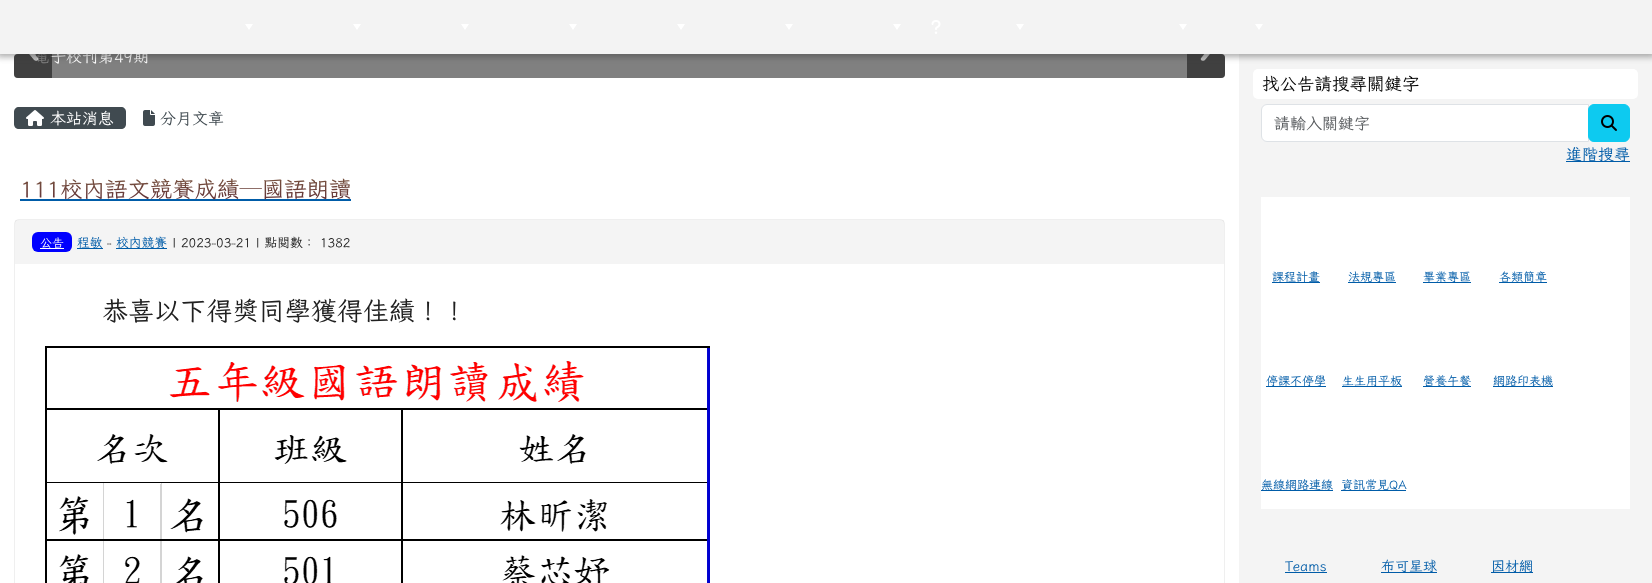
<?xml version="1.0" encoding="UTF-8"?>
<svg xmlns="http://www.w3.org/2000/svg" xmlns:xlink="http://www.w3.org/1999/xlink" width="1652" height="583">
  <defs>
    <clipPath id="clip1"><rect x="1253" y="69" width="385" height="113" rx="4" /></clipPath>
    <linearGradient id="g1" gradientUnits="userSpaceOnUse" x1="620" y1="170" x2="620" y2="209"><stop offset="0" stop-color="#7e5c40" /><stop offset="1" stop-color="#5c2938" /></linearGradient>
  </defs>
  <rect width="100%" height="100%" fill="#ffffff" />
  <rect x="14" y="54" width="1211" height="24" rx="4" fill="#808080" />
  <image x="1187" y="54" width="38" height="24" xlink:href="image3.png" />
  <path d="M 19 107 h 25 v 22 h -25 c -3 0 -5 -2 -5 -5 v -12 c 0 -3 2 -5 5 -5 z" fill="#404a50" />
  <path d="M 44 107 h 77 c 3 0 5 2 5 5 v 12 c 0 3 -2 5 -5 5 h -77 z" fill="#404a50" />
  <image x="26" y="110" width="18" height="16" xlink:href="image4.png" />
  <image x="143" y="110" width="12" height="16" xlink:href="image5.png" />
  <rect x="20" y="199" width="331" height="2" fill="#005ca8" />
  <rect x="14.5" y="219.5" width="1210" height="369" rx="4.5" fill="none" stroke="#efefef" />
  <rect x="15" y="220" width="1209" height="44" fill="#c8c8c8" fill-opacity="0.2" />
  <rect x="32" y="232" width="40" height="20" rx="6" fill="#0000ff" />
  <rect x="40" y="248" width="24" height="1" fill="#ffffff" />
  <rect x="77" y="248" width="26" height="1" fill="#005ca8" />
  <rect x="116" y="248" width="51" height="1" fill="#005ca8" />
  <image x="45" y="346" width="665" height="237" xlink:href="image6.png" />
  <rect x="1239" y="54" width="413" height="529" fill="#f4f4f4" />
  <g clip-path="url(#clip1)">
    <rect x="1253" y="69" width="385" height="30" rx="5" fill="#ffffff" />
  </g>
  <path d="M 1267 104.5 h 321.5 v 37 h -321.5 c -3 0 -5.5 -2.5 -5.5 -5.5 v -26 c 0 -3 2.5 -5.5 5.5 -5.5 z" fill="#ffffff" stroke="#dee2e6" />
  <rect x="1588.5" y="104.5" width="41" height="37" rx="5.5" fill="#0dcaf0" stroke="#0dcaf0" />
  <image x="1601" y="115" width="16" height="16" xlink:href="image7.png" />
  <rect x="1566" y="161" width="64" height="1" fill="#005ca8" />
  <rect x="1261" y="197" width="369" height="312" fill="#ffffff" />
  <rect x="1272" y="282" width="48" height="1" fill="#005ca8" />
  <rect x="1348" y="282" width="48" height="1" fill="#005ca8" />
  <rect x="1423" y="282" width="48" height="1" fill="#005ca8" />
  <rect x="1499" y="282" width="48" height="1" fill="#005ca8" />
  <rect x="1266" y="386" width="60" height="1" fill="#005ca8" />
  <rect x="1342" y="386" width="60" height="1" fill="#005ca8" />
  <rect x="1423" y="386" width="48" height="1" fill="#005ca8" />
  <rect x="1493" y="386" width="60" height="1" fill="#005ca8" />
  <rect x="1261" y="490" width="72" height="1" fill="#005ca8" />
  <rect x="1341" y="490" width="65" height="1" fill="#005ca8" />
  <rect x="1285" y="572" width="42" height="1" fill="#005ca8" />
  <rect x="1381" y="572" width="56" height="1" fill="#005ca8" />
  <rect x="1491" y="572" width="42" height="1" fill="#005ca8" />
  <text x="34" y="62" style="font-family: 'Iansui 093'; font-size: 16px; fill: #ffffff">電子校刊第49期</text>
  <image x="14" y="54" width="38" height="24" xlink:href="image2.png" />
  <rect x="-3" y="-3" width="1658" height="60" fill="#323232" fill-opacity="0.4" filter="blur(3px)" />
  <rect width="1652" height="54" fill="#f3f3f3" />
  <path d="M 1255 24 h 8 l -4 6 z" fill="#ffffff" />
  <path d="M 1179 24 h 8 l -4 6 z" fill="#ffffff" />
  <path d="M 1016 24 h 8 l -4 6 z" fill="#ffffff" />
  <image x="931" y="20" width="10" height="14" xlink:href="image1.png" />
  <path d="M 893 24 h 8 l -4 6 z" fill="#ffffff" />
  <path d="M 785 24 h 8 l -4 6 z" fill="#ffffff" />
  <path d="M 677 24 h 8 l -4 6 z" fill="#ffffff" />
  <path d="M 569 24 h 8 l -4 6 z" fill="#ffffff" />
  <path d="M 461 24 h 8 l -4 6 z" fill="#ffffff" />
  <path d="M 353 24 h 8 l -4 6 z" fill="#ffffff" />
  <path d="M 245 24 h 8 l -4 6 z" fill="#ffffff" />
  <text x="50" y="124" style="font-family: 'Iansui 093'; font-size: 16px; fill: #ffffff">本站消息</text>
  <text x="160" y="124" style="font-family: 'Iansui 093'; font-size: 16px; fill: #404a50">分月文章</text>
  <text x="20" y="197" style="font-family: 'Iansui 093'; font-size: 22.4px; fill: url(#g1)">111校內語文競賽成績─國語朗讀</text>
  <text x="40" y="247" style="font-family: 'Iansui 093'; font-size: 12px; fill: #ffffff">公告</text>
  <text x="77" y="247" style="font-family: 'Iansui 093'; font-size: 12.75px; fill: #005ca8">程敏</text>
  <text x="107" y="247" style="font-family: 'Iansui 093'; font-size: 12.75px; fill: #202020">-</text>
  <text x="116" y="247" style="font-family: 'Iansui 093'; font-size: 12.75px; fill: #005ca8">校內競賽</text>
  <text x="172" y="247" style="font-family: 'Iansui 093'; font-size: 12.75px; fill: #202020">| 2023-03-21 | 點閱數： 1382</text>
  <text x="102" y="320" style="font-family: 'Iansui 093'; font-size: 26.1px; fill: #202020">恭喜以下得獎同學獲得佳績！！</text>
  <text x="1262" y="90" style="font-family: 'Iansui 093'; font-size: 17.5px; fill: #000000">找公告請搜尋關鍵字</text>
  <text x="1274" y="129" style="font-family: 'Iansui 093'; font-size: 16px; fill: #595c5f">請輸入關鍵字</text>
  <text x="1566" y="160" style="font-family: 'Iansui 093'; font-size: 16px; fill: #005ca8">進階搜尋</text>
  <text x="1272" y="281" style="font-family: 'Iansui 093'; font-size: 12px; fill: #005ca8">課程計畫</text>
  <text x="1348" y="281" style="font-family: 'Iansui 093'; font-size: 12px; fill: #005ca8">法規專區</text>
  <text x="1423" y="281" style="font-family: 'Iansui 093'; font-size: 12px; fill: #005ca8">畢業專區</text>
  <text x="1499" y="281" style="font-family: 'Iansui 093'; font-size: 12px; fill: #005ca8">各類簡章</text>
  <text x="1266" y="385" style="font-family: 'Iansui 093'; font-size: 12px; fill: #005ca8">停課不停學</text>
  <text x="1342" y="385" style="font-family: 'Iansui 093'; font-size: 12px; fill: #005ca8">生生用平板</text>
  <text x="1423" y="385" style="font-family: 'Iansui 093'; font-size: 12px; fill: #005ca8">營養午餐</text>
  <text x="1493" y="385" style="font-family: 'Iansui 093'; font-size: 12px; fill: #005ca8">網路印表機</text>
  <text x="1261" y="489" style="font-family: 'Iansui 093'; font-size: 12px; fill: #005ca8">無線網路連線</text>
  <text x="1341" y="489" style="font-family: 'Iansui 093'; font-size: 12px; fill: #005ca8">資訊常見QA</text>
  <text x="1285" y="571" style="font-family: 'Iansui 093'; font-size: 14px; fill: #005ca8">Teams</text>
  <text x="1381" y="571" style="font-family: 'Iansui 093'; font-size: 14px; fill: #005ca8">布可星球</text>
  <text x="1491" y="571" style="font-family: 'Iansui 093'; font-size: 14px; fill: #005ca8">因材網</text>
</svg>
